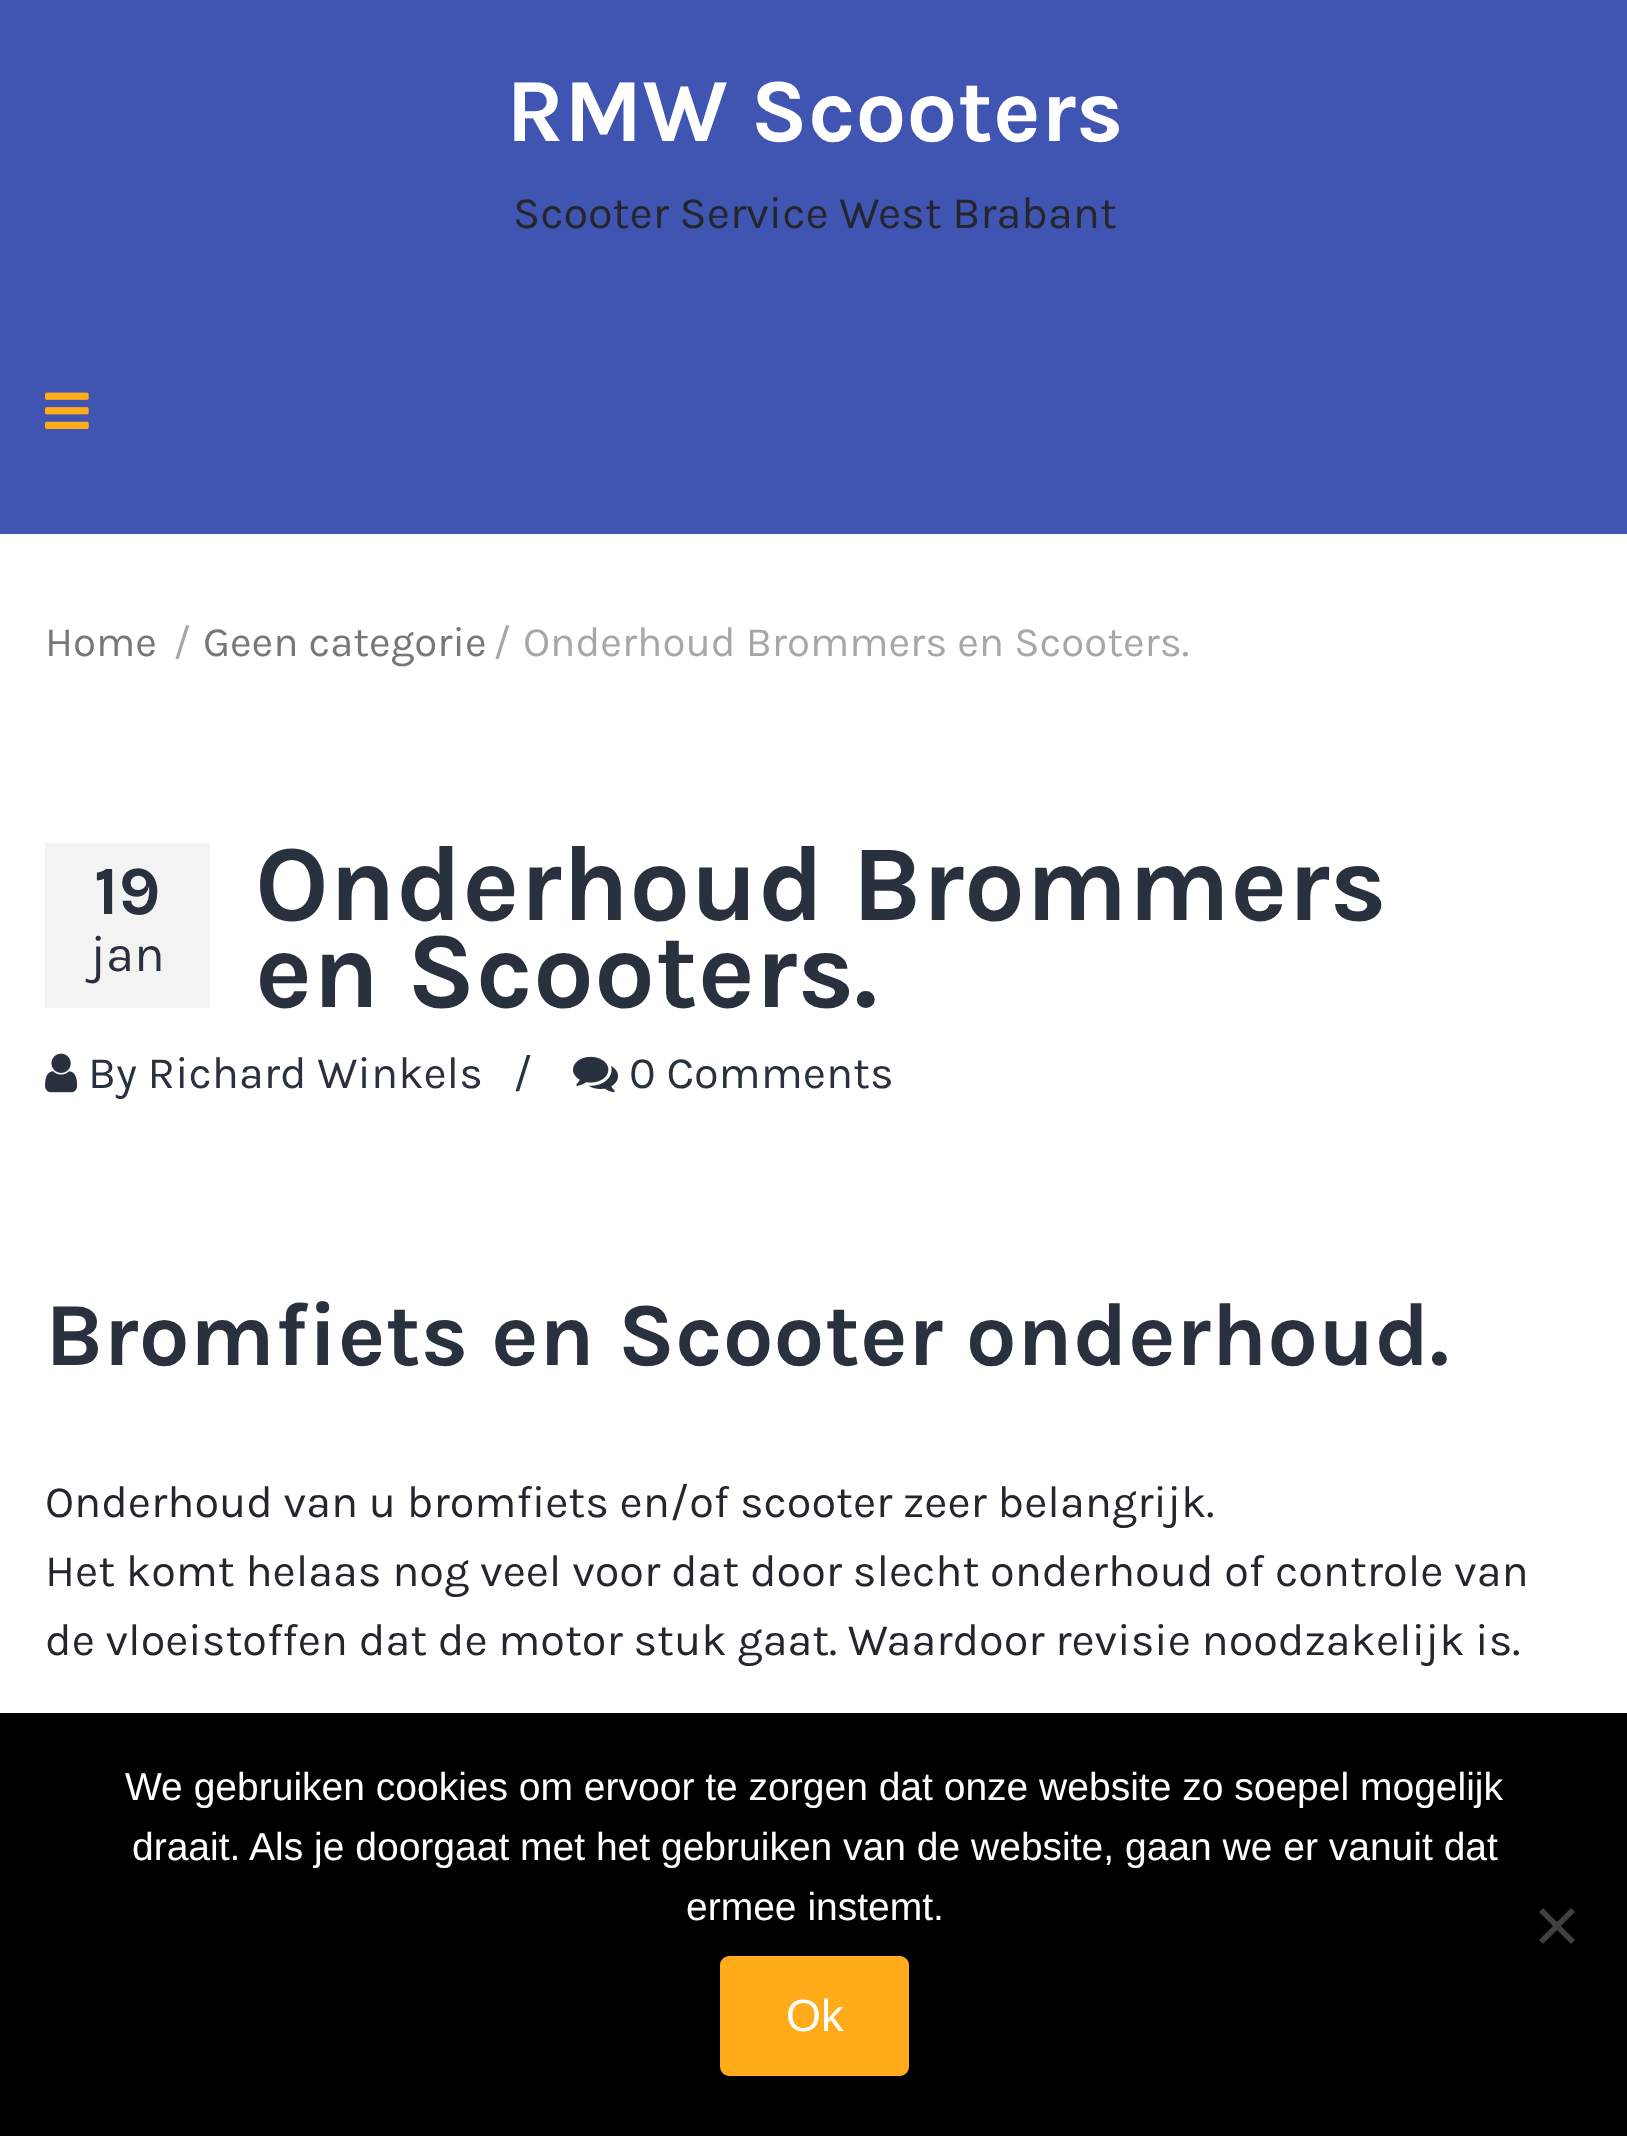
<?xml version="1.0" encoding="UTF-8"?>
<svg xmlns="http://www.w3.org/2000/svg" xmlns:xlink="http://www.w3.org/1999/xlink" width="1627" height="2136">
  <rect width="100%" height="100%" fill="#ffffff" />
  <rect width="1627" height="534" fill="#4054b2" />
  <image x="45" y="392" width="44" height="37" xlink:href="image1.png" />
  <rect x="45" y="843" width="165" height="165" fill="#f3f3f3" />
  <image x="45" y="1053" width="33" height="40" xlink:href="image2.png" />
  <image x="573" y="1056" width="45" height="37" xlink:href="image3.png" />
  <rect y="1713" width="1627" height="423" fill="#000000" />
  <path d="M 1571 1908 l 4 4 l -32 32 l -4 -4 z" fill="#404040" />
  <path d="M 1539 1912 l 4 -4 l 32 32 l -4 4 z" fill="#404040" />
  <rect x="723" y="1959" width="183" height="114" rx="6" fill="#ffab1a" stroke="#ffab1a" stroke-width="6" />
  <text x="506" y="141" style="font-family: Karla; font-size: 90px; font-weight: bold; fill: #ffffff">RMW Scooters</text>
  <text x="513" y="228" style="font-family: Karla; font-size: 45px; fill: #25262b">Scooter Service West Brabant</text>
  <text x="45" y="656" style="font-family: Karla; font-size: 42px; fill: #777777">Home</text>
  <text x="173" y="656" style="font-family: Karla; font-size: 42px; fill: #a7a7a7">/</text>
  <text x="203" y="656" style="font-family: Karla; font-size: 42px; fill: #777777">Geen categorie</text>
  <text x="493" y="656" style="font-family: Karla; font-size: 42px; fill: #a7a7a7">/</text>
  <text x="523" y="656" style="font-family: Karla; font-size: 42px; fill: #a7a7a7">Onderhoud Brommers en Scooters.</text>
  <text x="94" y="914" style="font-family: Karla; font-size: 69px; font-weight: bold; fill: #2a313e">19</text>
  <text x="90" y="971" style="font-family: Karla; font-size: 51px; fill: #2a313e">jan</text>
  <text x="255" y="920" style="font-family: Karla; font-size: 108px; font-weight: bold; fill: #2a313e">Onderhoud Brommers</text>
  <text x="255" y="1007" style="font-family: Karla; font-size: 108px; font-weight: bold; fill: #2a313e">en Scooters.</text>
  <text x="88" y="1088" style="font-family: Karla; font-size: 45px; fill: #2a313e">By Richard Winkels</text>
  <text x="513" y="1088" style="font-family: Karla; font-size: 45px; fill: #2a313e">/</text>
  <text x="629" y="1088" style="font-family: Karla; font-size: 45px; fill: #2a313e">0 Comments</text>
  <text x="45" y="1365" style="font-family: Karla; font-size: 90px; font-weight: bold; fill: #2a313e">Bromfiets en Scooter onderhoud.</text>
  <text x="45" y="1517" style="font-family: Karla; font-size: 45px; fill: #25262b">Onderhoud van u bromfiets en/of scooter zeer belangrijk.</text>
  <text x="45" y="1586" style="font-family: Karla; font-size: 45px; fill: #25262b">Het komt helaas nog veel voor dat door slecht onderhoud of controle van</text>
  <text x="45" y="1655" style="font-family: Karla; font-size: 45px; fill: #25262b">de vloeistoffen dat de motor stuk gaat. Waardoor revisie noodzakelijk is.</text>
  <text x="125" y="1800" style="font-family: Liberation Sans; font-size: 39px; fill: #ffffff">We gebruiken cookies om ervoor te zorgen dat onze website zo soepel mogelijk</text>
  <text x="132" y="1860" style="font-family: Liberation Sans; font-size: 39px; fill: #ffffff">draait. Als je doorgaat met het gebruiken van de website, gaan we er vanuit dat</text>
  <text x="686" y="1920" style="font-family: Liberation Sans; font-size: 39px; fill: #ffffff">ermee instemt.</text>
  <text x="786" y="2031" style="font-family: Liberation Sans; font-size: 45px; fill: #ffffff">Ok</text>
</svg>
